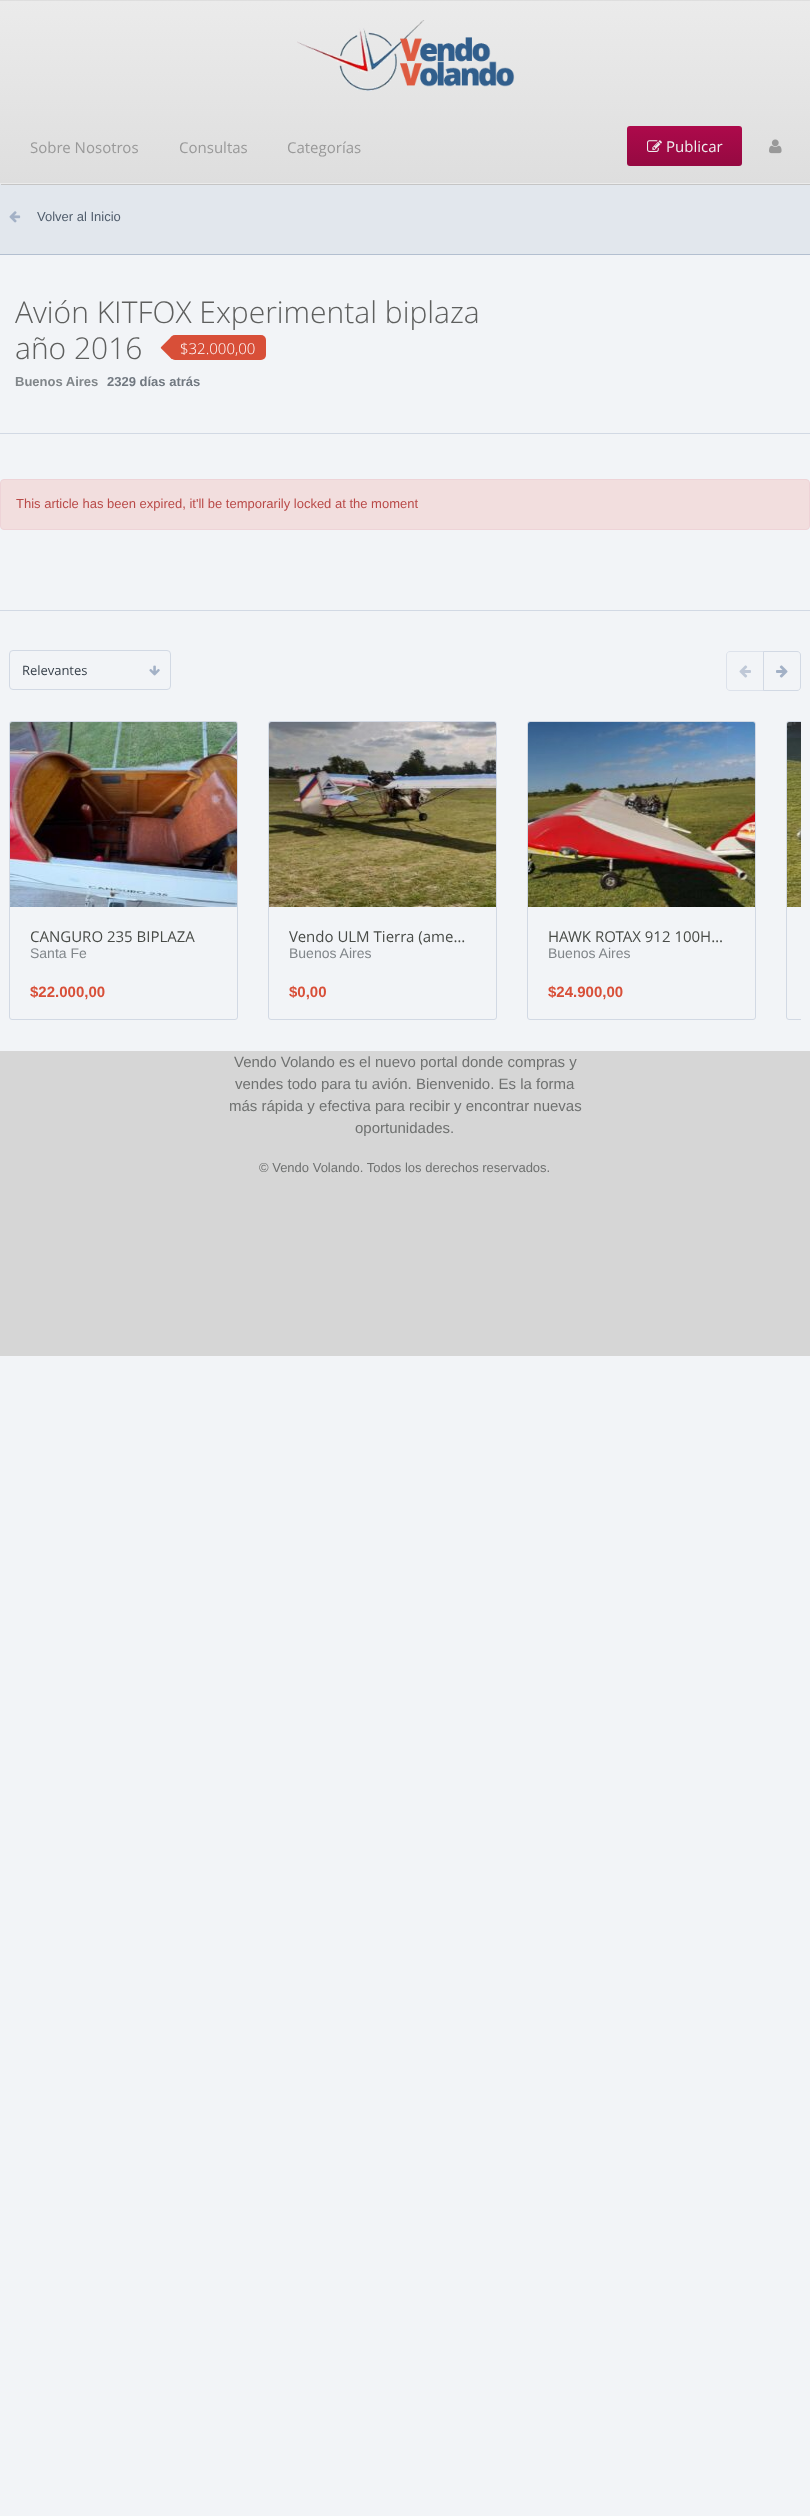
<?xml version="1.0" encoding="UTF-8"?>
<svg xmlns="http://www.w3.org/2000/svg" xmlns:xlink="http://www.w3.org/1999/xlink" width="810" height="2516">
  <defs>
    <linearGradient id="g1" gradientUnits="userSpaceOnUse" x1="1" y1="1" x2="1" y2="-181"><stop offset="0" stop-color="#dedede" /><stop offset="1" stop-color="#ebebeb" /></linearGradient>
    <linearGradient id="g2" gradientUnits="userSpaceOnUse" x1="1" y1="183" x2="1" y2="1"><stop offset="0" stop-color="#dedede" /><stop offset="1" stop-color="#ebebeb" /></linearGradient>
    <linearGradient id="g3" gradientUnits="userSpaceOnUse" x1="1" y1="365" x2="1" y2="183"><stop offset="0" stop-color="#dedede" /><stop offset="1" stop-color="#ebebeb" /></linearGradient>
    <linearGradient id="g4" gradientUnits="userSpaceOnUse" x1="627" y1="166" x2="627" y2="126"><stop offset="0" stop-color="#950941" /><stop offset="1" stop-color="#ad0a4b" /></linearGradient>
    <clipPath id="clip1"><rect x="9" y="721" width="792" height="299" /></clipPath>
  </defs>
  <rect width="100%" height="100%" fill="#f2f4f7" />
  <rect y="185" width="810" height="70" fill="#b3bfd0" filter="blur(0.5px)" />
  <rect y="184" width="810" height="70" fill="#e2e7ed" />
  <rect x="1" y="1" width="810" height="184" fill="#c5c5c5" filter="blur(0.5px)" />
  <rect width="810" height="1" fill="url(#g1)" />
  <rect y="1" width="810" height="182" fill="url(#g2)" />
  <rect y="183" width="810" height="1" fill="url(#g3)" />
  <image x="297" y="20" width="218" height="71" xlink:href="image1.png" />
  <rect x="627" y="126" width="115" height="40" rx="3" fill="url(#g4)" />
  <image x="647" y="140" width="15" height="12" xlink:href="image2.png" />
  <image x="769" y="139" width="13" height="15" xlink:href="image3.png" />
  <image x="9" y="211" width="12" height="12" xlink:href="image4.png" />
  <rect y="433" width="810" height="1" fill="#d2d9e4" />
  <image x="160" y="336" width="12" height="23" xlink:href="image5.png" />
  <rect x="170" y="335" width="96" height="25" rx="5" fill="#d84f38" />
  <rect x="0.5" y="479.5" width="809" height="50" rx="3.5" fill="#f2dede" stroke="#eed3d7" />
  <rect y="610" width="810" height="1" fill="#d2d9e4" />
  <rect x="9.5" y="650.5" width="161" height="39" rx="3.5" fill="none" stroke="#d2d9e4" />
  <image x="149" y="665" width="11" height="11" xlink:href="image6.png" />
  <path d="M 730 651.5 h 33.5 v 39 h -33.5 c -2 0 -3.5 -1.5 -3.5 -3.5 v -32 c 0 -2 1.5 -3.5 3.5 -3.5 z" fill="none" stroke="#dde2eb" />
  <image x="739" y="665" width="12" height="13" xlink:href="image7.png" />
  <path d="M 763.5 651.5 h 33.5 c 2 0 3.5 1.5 3.5 3.5 v 32 c 0 2 -1.5 3.5 -3.5 3.5 h -33.5 z" fill="none" stroke="#d2d9e4" />
  <image x="776" y="665" width="12" height="13" xlink:href="image8.png" />
  <rect x="9.5" y="721.5" width="228" height="298" rx="2.5" fill="none" stroke="#d2d9e4" />
  <image x="10" y="722" width="227" height="185" xlink:href="image9.png" />
  <image x="10" y="722" width="197" height="130" xlink:href="image10.png" />
  <rect x="268.5" y="721.5" width="228" height="298" rx="2.5" fill="none" stroke="#d2d9e4" />
  <image x="269" y="722" width="227" height="185" xlink:href="image11.png" />
  <image x="269" y="722" width="199" height="129" xlink:href="image12.png" />
  <rect x="527.5" y="721.5" width="228" height="298" rx="2.5" fill="none" stroke="#d2d9e4" />
  <image x="528" y="722" width="227" height="185" xlink:href="image13.png" />
  <image x="528" y="722" width="199" height="130" xlink:href="image14.png" />
  <g clip-path="url(#clip1)">
    <rect x="786.5" y="721.5" width="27" height="298" rx="2.5" fill="none" stroke="#d2d9e4" />
  </g>
  <image x="787" y="722" width="14" height="185" xlink:href="image15.png" />
  <image x="787" y="722" width="14" height="127" xlink:href="image16.png" />
  <rect y="1051" width="810" height="305" fill="#d6d6d6" />
  <text x="30" y="153" style="font-family: Open Sans; font-size: 15px; fill: #999999">Sobre Nosotros</text>
  <text x="179" y="153" style="font-family: Open Sans; font-size: 15px; fill: #999999">Consultas</text>
  <text x="287" y="153" style="font-family: Open Sans; font-size: 15px; fill: #999999">Categorías</text>
  <text x="666" y="152" style="font-family: Open Sans; font-size: 15px; fill: #eeeeee">Publicar</text>
  <text x="37" y="221" style="font-family: Liberation Sans; font-size: 13px; fill: #515e6d">Volver al Inicio</text>
  <text x="15" y="323" style="font-family: Open Sans; font-size: 30px; font-weight: 300; fill: #5e5f5e">Avión KITFOX Experimental biplaza</text>
  <text x="15" y="359" style="font-family: Open Sans; font-size: 30px; font-weight: 300; fill: #5e5f5e">año 2016</text>
  <text x="180" y="354" style="font-family: Open Sans; font-size: 15px; font-weight: 300; fill: #ffffff">$32.000,00</text>
  <text x="15" y="386" style="font-family: Liberation Sans; font-size: 13px; font-weight: bold; fill: #81868a">Buenos Aires</text>
  <text x="107" y="386" style="font-family: Liberation Sans; font-size: 13px; font-weight: bold; fill: #717880">2329 días atrás</text>
  <text x="16" y="508" style="font-family: Liberation Sans; font-size: 13px; fill: #b94a48">This article has been expired, it'll be temporarily locked at the moment</text>
  <text x="22" y="675" style="font-family: Open Sans; font-size: 13px; fill: #363f49">Relevantes</text>
  <text x="30" y="942" style="font-family: Open Sans; font-size: 15px; fill: #484b47">CANGURO 235 BIPLAZA</text>
  <text x="30" y="958" style="font-family: Liberation Sans; font-size: 14px; fill: #81868a">Santa Fe</text>
  <text x="30" y="997" style="font-family: Liberation Sans; font-size: 15px; font-weight: bold; fill: #d84f38">$22.000,00</text>
  <text x="289" y="942" style="font-family: Open Sans; font-size: 15px; fill: #484b47">Vendo ULM Tierra (ame…</text>
  <text x="289" y="958" style="font-family: Liberation Sans; font-size: 14px; fill: #81868a">Buenos Aires</text>
  <text x="289" y="997" style="font-family: Liberation Sans; font-size: 15px; font-weight: bold; fill: #d84f38">$0,00</text>
  <text x="548" y="942" style="font-family: Open Sans; font-size: 15px; fill: #484b47">HAWK ROTAX 912 100H…</text>
  <text x="548" y="958" style="font-family: Liberation Sans; font-size: 14px; fill: #81868a">Buenos Aires</text>
  <text x="548" y="997" style="font-family: Liberation Sans; font-size: 15px; font-weight: bold; fill: #d84f38">$24.900,00</text>
  <text x="234" y="1067" style="font-family: Liberation Sans; font-size: 15px; fill: #6f7170">Vendo Volando es el nuevo portal donde compras y</text>
  <text x="235" y="1089" style="font-family: Liberation Sans; font-size: 15px; fill: #6f7170">vendes todo para tu avión. Bienvenido. Es la forma</text>
  <text x="229" y="1111" style="font-family: Liberation Sans; font-size: 15px; fill: #6f7170">más rápida y efectiva para recibir y encontrar nuevas</text>
  <text x="355" y="1133" style="font-family: Liberation Sans; font-size: 15px; fill: #6f7170">oportunidades.</text>
  <text x="259" y="1172" style="font-family: Liberation Sans; font-size: 13px; fill: #6f7170">© Vendo Volando. Todos los derechos reservados.</text>
</svg>
